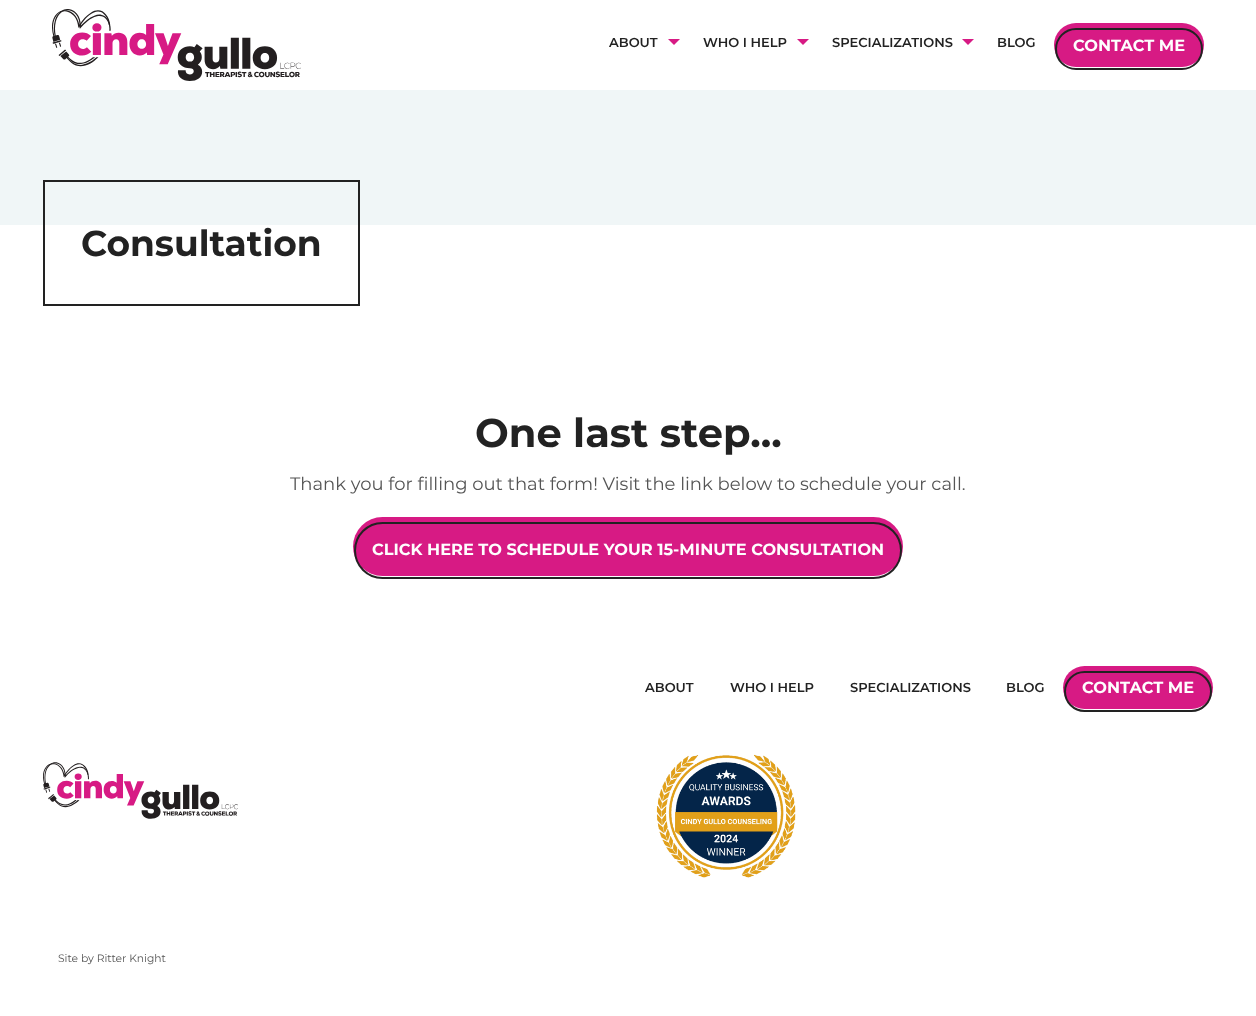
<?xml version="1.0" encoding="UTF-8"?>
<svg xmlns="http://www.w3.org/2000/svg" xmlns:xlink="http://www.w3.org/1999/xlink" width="1256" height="1016">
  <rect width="100%" height="100%" fill="#ffffff" />
  <image x="52" y="9" width="249" height="72" xlink:href="image1.png" />
  <path d="M 668 39 h 12 l -6 6 z" fill="#d71a84" />
  <path d="M 797 39 h 12 l -6 6 z" fill="#d71a84" />
  <path d="M 962 39 h 12 l -6 6 z" fill="#d71a84" />
  <rect x="1054" y="23" width="150" height="44" rx="22" fill="#d71a84" />
  <rect x="1056" y="29" width="146" height="40" rx="20" fill="none" stroke="#222222" stroke-width="2" />
  <rect y="90" width="1256" height="135" fill="#f0f6f7" />
  <rect x="44" y="181" width="315" height="124" fill="none" stroke="#222222" stroke-width="2" />
  <rect x="353" y="517" width="550" height="59" rx="29.5" fill="#d71a84" />
  <rect x="355" y="523" width="546" height="55" rx="27.5" fill="none" stroke="#222222" stroke-width="2" />
  <rect x="1063" y="666" width="150" height="43" rx="21.5" fill="#d71a84" />
  <rect x="1065" y="672" width="146" height="39" rx="19.5" fill="none" stroke="#222222" stroke-width="2" />
  <image x="656" y="754" width="140" height="124" xlink:href="image2.png" />
  <image x="43" y="762" width="195" height="57" xlink:href="image3.png" />
  <text x="609" y="47" style="font-family: Montserrat; font-size: 13px; font-weight: 600; fill: #222222">ABOUT</text>
  <text x="703" y="47" style="font-family: Montserrat; font-size: 13px; font-weight: 600; fill: #222222">WHO I HELP</text>
  <text x="832" y="47" style="font-family: Montserrat; font-size: 13px; font-weight: 600; fill: #222222">SPECIALIZATIONS</text>
  <text x="997" y="47" style="font-family: Montserrat; font-size: 13px; font-weight: 600; fill: #222222">BLOG</text>
  <text x="1073" y="51" style="font-family: Montserrat; font-size: 16.2px; font-weight: bold; fill: #fefefe">CONTACT ME</text>
  <text x="81" y="256" style="font-family: Montserrat; font-size: 36px; font-weight: bold; fill: #222222">Consultation</text>
  <text x="475" y="447" style="font-family: Montserrat; font-size: 40px; font-weight: bold; fill: #222222">One last step...</text>
  <text x="290" y="490" style="font-family: Montserrat; font-size: 18px; fill: #555555">Thank you for filling out that form! Visit the link below to schedule your call.</text>
  <text x="372" y="555" style="font-family: Montserrat; font-size: 16.2px; font-weight: bold; fill: #fefefe">CLICK HERE TO SCHEDULE YOUR 15-MINUTE CONSULTATION</text>
  <text x="645" y="692" style="font-family: Montserrat; font-size: 13px; font-weight: 600; fill: #222222">ABOUT</text>
  <text x="730" y="692" style="font-family: Montserrat; font-size: 13px; font-weight: 600; fill: #222222">WHO I HELP</text>
  <text x="850" y="692" style="font-family: Montserrat; font-size: 13px; font-weight: 600; fill: #222222">SPECIALIZATIONS</text>
  <text x="1006" y="692" style="font-family: Montserrat; font-size: 13px; font-weight: 600; fill: #222222">BLOG</text>
  <text x="1082" y="693" style="font-family: Montserrat; font-size: 16.2px; font-weight: bold; fill: #fefefe">CONTACT ME</text>
  <text x="58" y="962" style="font-family: Montserrat; font-size: 10.75px; fill: #555555">Site by Ritter Knight</text>
</svg>
